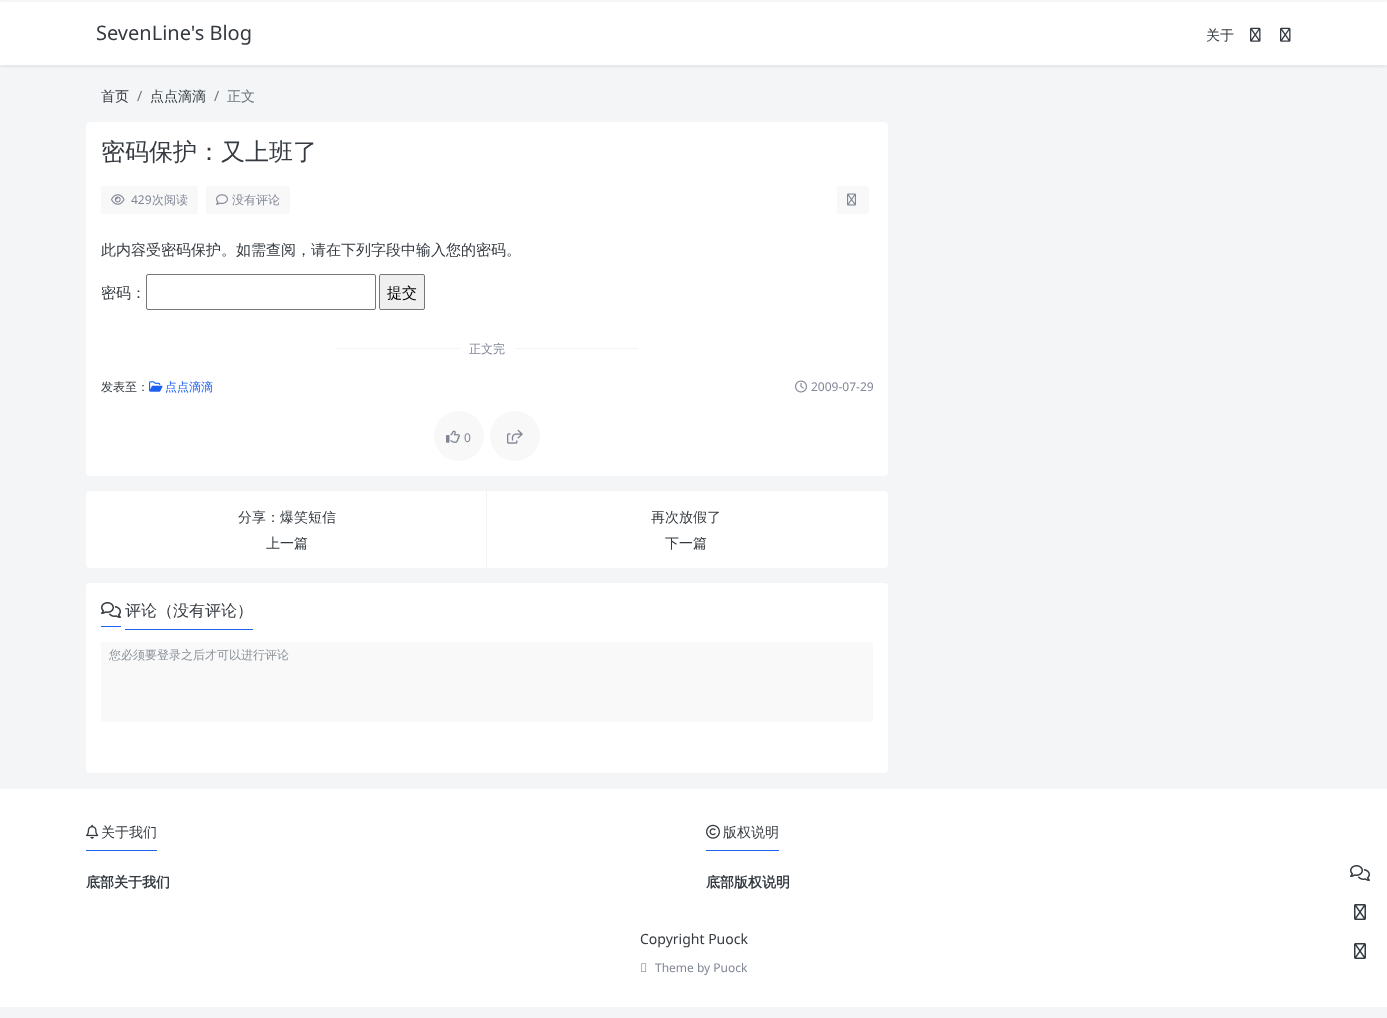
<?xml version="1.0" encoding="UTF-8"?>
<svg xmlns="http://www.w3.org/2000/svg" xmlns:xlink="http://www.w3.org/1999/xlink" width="1387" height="1018">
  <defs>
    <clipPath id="clip1"><rect x="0" y="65" width="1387" height="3" /></clipPath>
  </defs>
  <rect width="100%" height="100%" fill="#f3f5f7" />
  <rect width="1387" height="65" fill="#ffffff" />
  <g clip-path="url(#clip1)">
    <rect y="2" width="1387" height="65" fill="#000000" fill-opacity="0.07" filter="blur(2px)" />
  </g>
  <rect width="1387" height="2" rx="1" fill="#f3f5f7" />
  <image x="1250" y="27" width="11" height="15" xlink:href="image1.png" />
  <image x="1280" y="27" width="11" height="15" xlink:href="image1.png" />
  <rect x="86" y="122" width="802" height="354" rx="4" fill="#ffffff" />
  <rect x="101" y="186" width="97" height="28" rx="2" fill="#f8f8f9" />
  <image x="111" y="194" width="14" height="11" xlink:href="image2.png" />
  <rect x="206" y="186" width="84" height="28" rx="2" fill="#f8f8f9" />
  <image x="216" y="194" width="12" height="11" xlink:href="image3.png" />
  <rect x="837" y="186" width="32" height="28" rx="2" fill="#f8f8f9" />
  <image x="847" y="193" width="9" height="13" xlink:href="image4.png" />
  <rect x="146.5" y="274.5" width="229" height="35" rx="1.5" fill="none" stroke="#767676" />
  <rect x="379.5" y="274.5" width="45" height="35" rx="1.5" fill="#efefef" stroke="#767676" />
  <rect x="335" y="348" width="124" height="1" fill="#f3f3f3" />
  <rect x="515" y="348" width="123" height="1" fill="#f3f3f3" />
  <image x="149" y="381" width="14" height="11" xlink:href="image5.png" />
  <image x="795" y="380" width="12" height="13" xlink:href="image6.png" />
  <circle cx="459" cy="436" r="25" fill="#f8f8f9" />
  <image x="446" y="430" width="14" height="13" xlink:href="image7.png" />
  <circle cx="515" cy="436" r="25" fill="#f8f8f9" />
  <image x="507" y="429" width="16" height="15" xlink:href="image8.png" />
  <rect x="86" y="491" width="802" height="77" rx="4" fill="#ffffff" />
  <rect x="486" y="491" width="1" height="77" fill="#f3f3f3" />
  <rect x="86" y="583" width="802" height="190" rx="4" fill="#ffffff" />
  <rect x="101" y="626" width="20" height="1" fill="#1c60f3" />
  <rect x="125" y="629" width="128" height="1" fill="#1c60f3" />
  <image x="101" y="602" width="20" height="16" xlink:href="image9.png" />
  <rect x="101" y="642" width="772" height="80" rx="2" fill="#f9f9fa" />
  <rect y="789" width="1387" height="218" fill="#ffffff" />
  <rect x="86" y="850" width="71" height="1" fill="#1c60f3" />
  <image x="86" y="824" width="13" height="15" xlink:href="image10.png" />
  <rect x="706" y="850" width="73" height="1" fill="#1c60f3" />
  <image x="706" y="824" width="14" height="15" xlink:href="image11.png" />
  <image x="641" y="963" width="6" height="9" xlink:href="image12.png" />
  <image x="1350" y="865" width="20" height="16" xlink:href="image9.png" />
  <image x="1354" y="904" width="12" height="16" xlink:href="image13.png" />
  <image x="1354" y="943" width="12" height="16" xlink:href="image13.png" />
  <text x="96" y="40" style="font-family: Noto Sans; font-size: 20px; fill: #343a40">SevenLine's Blog</text>
  <text x="1206" y="40" style="font-family: WenQuanYi Zen Hei; font-size: 14px; font-weight: 500; fill: #343a40">关于</text>
  <text x="101" y="101" style="font-family: WenQuanYi Zen Hei; font-size: 14px; font-weight: 500; fill: #343a40">首页</text>
  <text x="137" y="101" style="font-family: Noto Sans; font-size: 14px; fill: #6c757d">/</text>
  <text x="150" y="101" style="font-family: WenQuanYi Zen Hei; font-size: 14px; font-weight: 500; fill: #343a40">点点滴滴</text>
  <text x="214" y="101" style="font-family: Noto Sans; font-size: 14px; fill: #6c757d">/</text>
  <text x="227" y="101" style="font-family: WenQuanYi Zen Hei; font-size: 14px; font-weight: 500; fill: #6c757d">正文</text>
  <text x="101" y="160" style="font-family: WenQuanYi Zen Hei; font-size: 24px; font-weight: 500; fill: #343a40">密码保护：又上班了</text>
  <text x="131" y="204" style="font-family: Noto Sans; font-size: 12px; fill: #808695">429</text>
  <text x="152" y="204" style="font-family: WenQuanYi Zen Hei; font-size: 12px; font-weight: 500; fill: #808695">次阅读</text>
  <text x="232" y="204" style="font-family: WenQuanYi Zen Hei; font-size: 12px; font-weight: 500; fill: #808695">没有评论</text>
  <text x="101" y="255" style="font-family: WenQuanYi Zen Hei; font-size: 15px; font-weight: 500; fill: #343a40">此内容受密码保护。如需查阅，请在下列字段中输入您的密码。</text>
  <text x="101" y="298" style="font-family: WenQuanYi Zen Hei; font-size: 15px; font-weight: 500; fill: #343a40">密码：</text>
  <text x="387" y="298" style="font-family: WenQuanYi Zen Hei; font-size: 15px; font-weight: 500; fill: #000000">提交</text>
  <text x="469" y="353" style="font-family: WenQuanYi Zen Hei; font-size: 12px; font-weight: 500; fill: #808695">正文完</text>
  <text x="101" y="391" style="font-family: WenQuanYi Zen Hei; font-size: 12px; font-weight: 500; fill: #343a40">发表至：</text>
  <text x="165" y="391" style="font-family: WenQuanYi Zen Hei; font-size: 12px; font-weight: 500; fill: #1c60f3">点点滴滴</text>
  <text x="811" y="391" style="font-family: Noto Sans; font-size: 12px; fill: #808695">2009-07-29</text>
  <text x="464" y="442" style="font-family: Noto Sans; font-size: 12px; fill: #808695">0</text>
  <text x="238" y="522" style="font-family: WenQuanYi Zen Hei; font-size: 14px; font-weight: 500; fill: #343a40">分享：爆笑短信</text>
  <text x="266" y="548" style="font-family: WenQuanYi Zen Hei; font-size: 14px; font-weight: 500; fill: #343a40">上一篇</text>
  <text x="651" y="522" style="font-family: WenQuanYi Zen Hei; font-size: 14px; font-weight: 500; fill: #343a40">再次放假了</text>
  <text x="665" y="548" style="font-family: WenQuanYi Zen Hei; font-size: 14px; font-weight: 500; fill: #343a40">下一篇</text>
  <text x="125" y="616" style="font-family: WenQuanYi Zen Hei; font-size: 16px; font-weight: 500; fill: #343a40">评论（没有评论）</text>
  <text x="109" y="659" style="font-family: WenQuanYi Zen Hei; font-size: 12px; font-weight: 500; fill: #899197">您必须要登录之后才可以进行评论</text>
  <text x="101" y="837" style="font-family: WenQuanYi Zen Hei; font-size: 14px; font-weight: 500; fill: #343a40">关于我们</text>
  <text x="86" y="887" style="font-family: WenQuanYi Zen Hei; font-size: 14px; font-weight: bold; fill: #343a40">底部关于我们</text>
  <text x="723" y="837" style="font-family: WenQuanYi Zen Hei; font-size: 14px; font-weight: 500; fill: #343a40">版权说明</text>
  <text x="706" y="887" style="font-family: WenQuanYi Zen Hei; font-size: 14px; font-weight: bold; fill: #343a40">底部版权说明</text>
  <text x="640" y="944" style="font-family: Noto Sans; font-size: 14px; fill: #343a40">Copyright Puock</text>
  <text x="655" y="972" style="font-family: Noto Sans; font-size: 12px; fill: #808695">Theme by Puock</text>
</svg>
